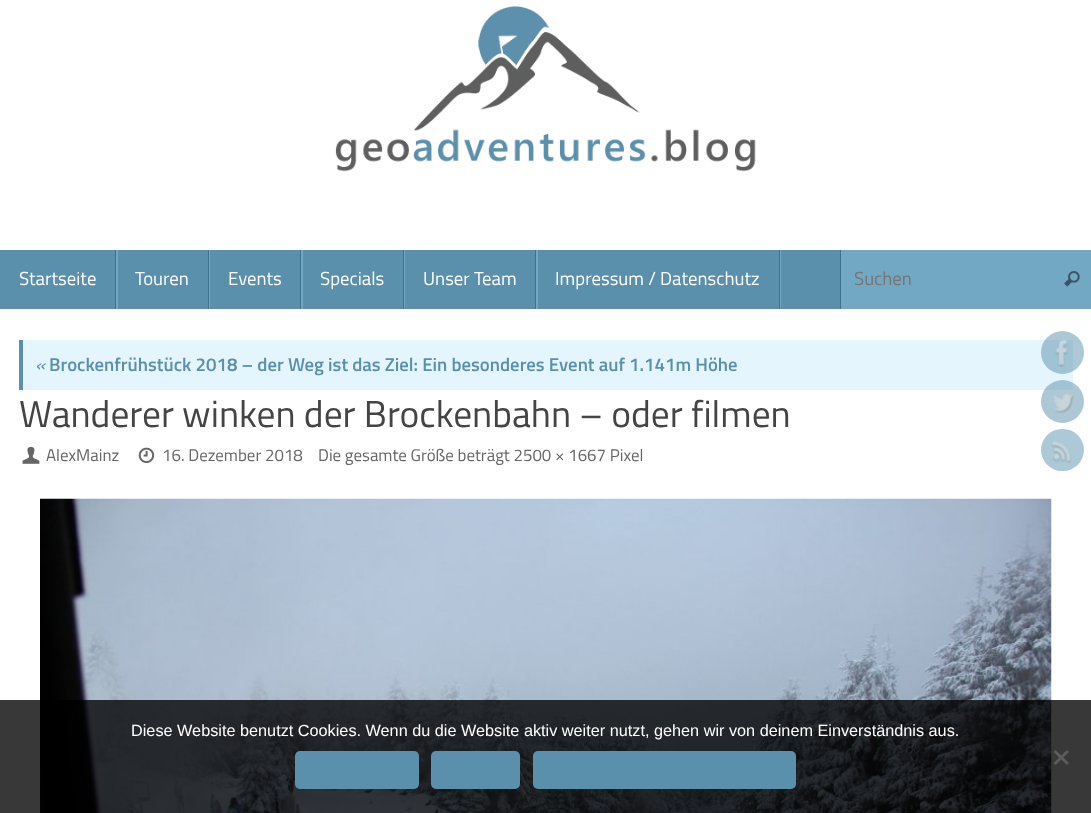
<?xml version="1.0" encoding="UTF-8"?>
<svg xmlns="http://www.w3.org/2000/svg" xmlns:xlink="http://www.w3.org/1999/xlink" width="1091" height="813">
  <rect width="100%" height="100%" fill="#ffffff" />
  <image x="335" y="6" width="421" height="166" xlink:href="image1.png" />
  <rect y="250" width="840" height="59" fill="#5b90ac" />
  <path d="M 1 309 h 117 v -59 h -2 v 59 z" fill="#73a8c4" />
  <rect x="115" y="250" width="1" height="59" fill="#3d728e" />
  <path d="M 118 309 h 92 v -59 h -1 v 59 z" fill="#73a8c4" />
  <rect x="208" y="250" width="1" height="59" fill="#3d728e" />
  <path d="M 210 309 h 93 v -59 h -2 v 59 z" fill="#73a8c4" />
  <rect x="300" y="250" width="1" height="59" fill="#3d728e" />
  <path d="M 303 309 h 102 v -59 h -1 v 59 z" fill="#73a8c4" />
  <rect x="403" y="250" width="1" height="59" fill="#3d728e" />
  <path d="M 405 309 h 133 v -59 h -2 v 59 z" fill="#73a8c4" />
  <rect x="535" y="250" width="1" height="59" fill="#3d728e" />
  <path d="M 538 309 h 243 v -59 h -1 v 59 z" fill="#73a8c4" />
  <rect x="779" y="250" width="1" height="59" fill="#3d728e" />
  <rect x="841" y="250" width="250" height="59" fill="#73a8c4" />
  <rect x="840" y="250" width="1" height="59" fill="#3d728e" />
  <image x="1064" y="271" width="16" height="16" xlink:href="image2.png" />
  <rect x="23" y="340" width="1050" height="50" fill="#e4f5fe" />
  <rect x="19" y="340" width="4" height="50" fill="#5b90ac" />
  <image x="22" y="446" width="18" height="18" xlink:href="image3.png" />
  <image x="138" y="447" width="17" height="16" xlink:href="image4.png" />
  <image x="40" y="498" width="1012" height="315" xlink:href="image5.png" />
  <circle cx="1062.5" cy="352.5" r="21.5" fill="#5b90ac" fill-opacity="0.5" />
  <image x="1055" y="339" width="13" height="28" xlink:href="image6.png" />
  <circle cx="1062.5" cy="401.5" r="21.5" fill="#5b90ac" fill-opacity="0.5" />
  <image x="1054" y="393" width="20" height="20" xlink:href="image7.png" />
  <rect x="1041" y="429" width="43" height="42" rx="21" fill="#adc8d6" />
  <image x="1051" y="441" width="21" height="22" xlink:href="image8.png" />
  <rect y="700" width="1091" height="113" fill="#000000" fill-opacity="0.78" />
  <rect x="295" y="751" width="124" height="38" rx="5" fill="#5b90ac" />
  <rect x="431" y="751" width="89" height="38" rx="5" fill="#5b90ac" />
  <rect x="533" y="751" width="263" height="38" rx="5" fill="#5b90ac" />
  <path d="M 1067 750 l 2 2 l -13.5 13 l -2 -2 z" fill="#5c5c5c" />
  <path d="M 1053.5 752 l 2 -2 l 13.5 13 l -2 2 z" fill="#5c5c5c" />
  <text x="19" y="285" style="font-family: Titillium Web; font-size: 18.75px; fill: #ffffff">Startseite</text>
  <text x="135" y="285" style="font-family: Titillium Web; font-size: 18.75px; fill: #ffffff">Touren</text>
  <text x="228" y="285" style="font-family: Titillium Web; font-size: 18.75px; fill: #ffffff">Events</text>
  <text x="320" y="285" style="font-family: Titillium Web; font-size: 18.75px; fill: #ffffff">Specials</text>
  <text x="423" y="285" style="font-family: Titillium Web; font-size: 18.75px; fill: #ffffff">Unser Team</text>
  <text x="555" y="285" style="font-family: Titillium Web; font-size: 18.75px; fill: #ffffff">Impressum / Datenschutz</text>
  <text x="854" y="285" style="font-family: Titillium Web; font-size: 18.75px; fill: #757575">Suchen</text>
  <text x="35" y="371" style="font-family: Titillium Web; font-size: 18.75px; font-style: italic; fill: #5b90ac">«</text>
  <text x="49" y="371" style="font-family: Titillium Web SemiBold; font-size: 18.75px; font-weight: 600; fill: #5b90ac">Brockenfrühstück 2018 – der Weg ist das Ziel: Ein besonderes Event auf 1.141m Höhe</text>
  <text x="19" y="427" style="font-family: Titillium Web; font-size: 37.5px; fill: #444444">Wanderer winken der Brockenbahn – oder filmen</text>
  <text x="46" y="461" style="font-family: Titillium Web; font-size: 16.9px; fill: #666666">AlexMainz</text>
  <text x="162" y="461" style="font-family: Titillium Web; font-size: 16.9px; fill: #666666">16. Dezember 2018</text>
  <text x="318" y="461" style="font-family: Titillium Web; font-size: 16.9px; fill: #666666">Die gesamte Größe beträgt 2500 × 1667 Pixel</text>
  <text x="131" y="736" style="font-family: Liberation Sans; font-size: 16.25px; fill: #ffffff">Diese Website benutzt Cookies. Wenn du die Website aktiv weiter nutzt, gehen wir von deinem Einverständnis aus.</text>
</svg>
